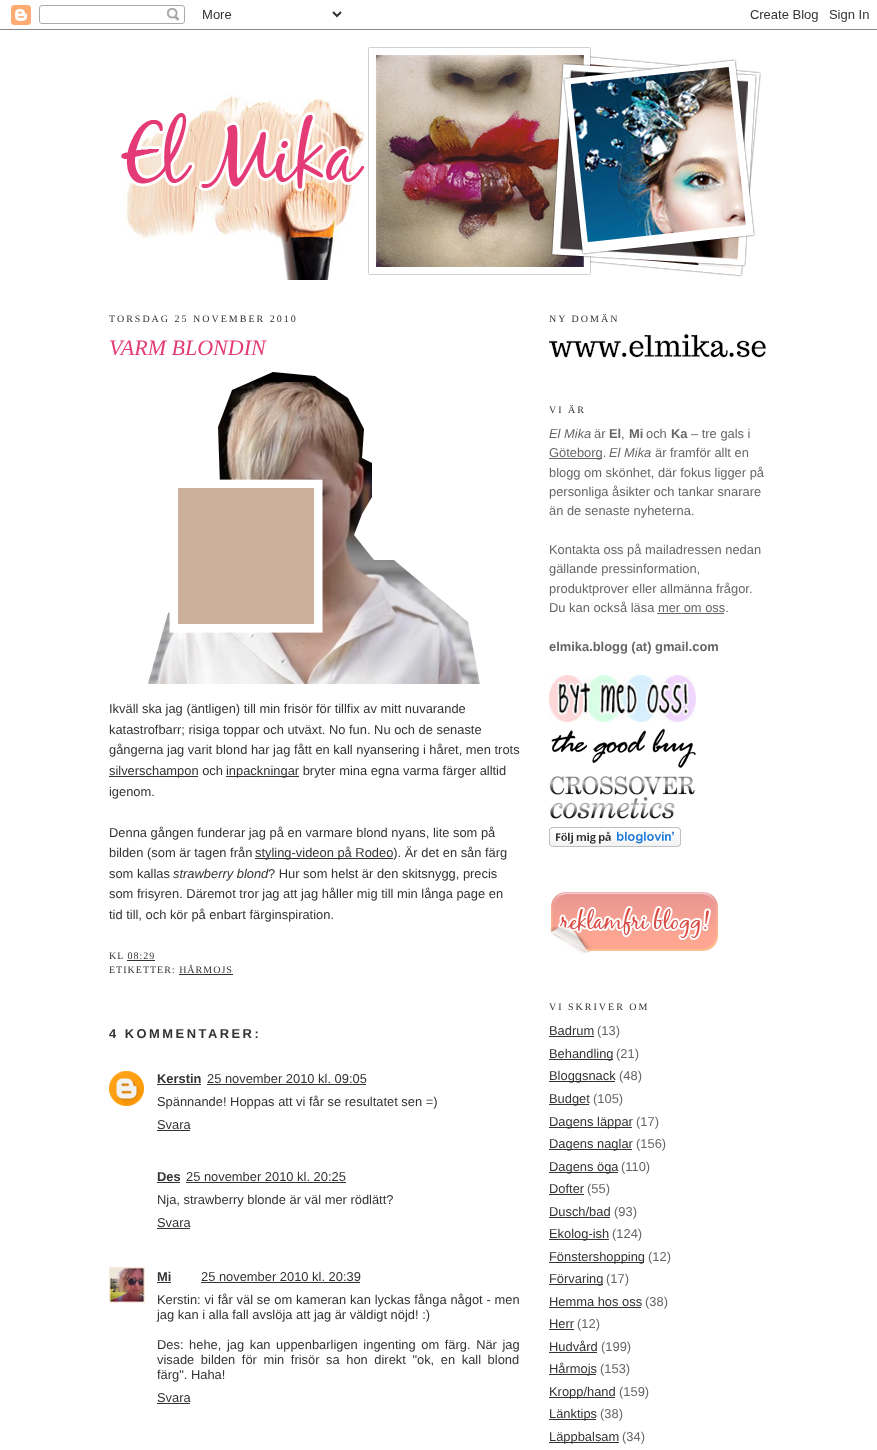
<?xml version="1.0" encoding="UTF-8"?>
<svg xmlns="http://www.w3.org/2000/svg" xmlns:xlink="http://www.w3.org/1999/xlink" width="877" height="1450">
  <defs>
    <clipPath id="clip1"><rect x="109" y="297" width="410" height="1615" /></clipPath>
  </defs>
  <rect width="100%" height="100%" fill="#ffffff" />
  <image x="0" y="5" width="877" height="25" xlink:href="image1.png" />
  <image x="121" y="47" width="640" height="233" xlink:href="image2.png" />
  <image x="148" y="372" width="332" height="312" xlink:href="image3.png" />
  <rect x="109" y="776" width="89" height="1" fill="#333333" />
  <rect x="226" y="776" width="73" height="1" fill="#333333" />
  <rect x="255" y="858" width="138" height="1" fill="#333333" />
  <rect x="127" y="960" width="28" height="1" fill="#333333" />
  <rect x="179" y="974" width="54" height="1" fill="#333333" />
  <image x="109" y="1071" width="35" height="35" xlink:href="image4.png" />
  <rect x="157" y="1084" width="44" height="1" fill="#333333" />
  <rect x="207" y="1084" width="159" height="1" fill="#333333" />
  <rect x="157" y="1130" width="33" height="1" fill="#333333" />
  <rect x="157" y="1182" width="23" height="1" fill="#333333" />
  <rect x="186" y="1182" width="160" height="1" fill="#333333" />
  <rect x="157" y="1228" width="33" height="1" fill="#333333" />
  <image x="109" y="1267" width="36" height="36" xlink:href="image5.png" />
  <rect x="157" y="1282" width="14" height="1" fill="#333333" />
  <rect x="201" y="1282" width="159" height="1" fill="#333333" />
  <rect x="157" y="1403" width="33" height="1" fill="#333333" />
  <image x="549" y="334" width="218" height="24" xlink:href="image6.png" />
  <rect x="549" y="458" width="53" height="1" fill="#666666" />
  <rect x="657" y="613" width="67" height="1" fill="#666666" />
  <image x="549" y="675" width="147" height="47" xlink:href="image7.png" />
  <image x="551" y="728" width="145" height="40" xlink:href="image8.png" />
  <image x="549" y="776" width="146" height="43" xlink:href="image9.png" />
  <image x="549" y="827" width="132" height="20" xlink:href="image10.png" />
  <image x="550" y="892" width="168" height="62" xlink:href="image11.png" />
  <rect x="549" y="1036" width="45" height="1" fill="#333333" />
  <rect x="549" y="1059" width="64" height="1" fill="#333333" />
  <rect x="549" y="1081" width="66" height="1" fill="#333333" />
  <rect x="549" y="1104" width="40" height="1" fill="#333333" />
  <rect x="549" y="1127" width="83" height="1" fill="#333333" />
  <rect x="549" y="1149" width="83" height="1" fill="#333333" />
  <rect x="549" y="1172" width="69" height="1" fill="#333333" />
  <rect x="549" y="1194" width="35" height="1" fill="#333333" />
  <rect x="549" y="1217" width="61" height="1" fill="#333333" />
  <rect x="549" y="1239" width="60" height="1" fill="#333333" />
  <rect x="549" y="1262" width="95" height="1" fill="#333333" />
  <rect x="549" y="1284" width="54" height="1" fill="#333333" />
  <rect x="549" y="1307" width="92" height="1" fill="#333333" />
  <rect x="549" y="1329" width="25" height="1" fill="#333333" />
  <rect x="549" y="1352" width="48" height="1" fill="#333333" />
  <rect x="549" y="1374" width="47" height="1" fill="#333333" />
  <rect x="549" y="1397" width="66" height="1" fill="#333333" />
  <rect x="549" y="1419" width="47" height="1" fill="#333333" />
  <rect x="549" y="1442" width="70" height="1" fill="#333333" />
  <text x="109" y="322" style="font-family: Liberation Serif; font-size: 10px; letter-spacing: 2px; fill: #333333">TORSDAG 25 NOVEMBER 2010</text>
  <text x="109" y="355" style="font-family: Liberation Serif; font-size: 22px; font-style: italic; fill: #e43a76">VARM BLONDIN</text>
  <text x="109" y="713" style="font-family: Liberation Sans; font-size: 12.9px; fill: #333333">Ikväll ska jag (äntligen) till min frisör för tillfix av mitt nuvarande</text>
  <text x="109" y="734" style="font-family: Liberation Sans; font-size: 12.9px; fill: #333333">katastrofbarr; risiga toppar och utväxt. No fun. Nu och de senaste</text>
  <text x="109" y="754" style="font-family: Liberation Sans; font-size: 12.9px; fill: #333333">gångerna jag varit blond har jag fått en kall nyansering i håret, men trots</text>
  <text x="109" y="775" style="font-family: Liberation Sans; font-size: 12.9px; fill: #333333">silverschampon och</text>
  <text x="226" y="775" style="font-family: Liberation Sans; font-size: 12.9px; fill: #333333">inpackningar bryter mina egna varma färger alltid</text>
  <text x="109" y="796" style="font-family: Liberation Sans; font-size: 12.9px; fill: #333333">igenom.</text>
  <text x="109" y="837" style="font-family: Liberation Sans; font-size: 12.9px; fill: #333333">Denna gången funderar jag på en varmare blond nyans, lite som på</text>
  <text x="109" y="857" style="font-family: Liberation Sans; font-size: 12.9px; fill: #333333">bilden (som är tagen från</text>
  <text x="255" y="857" style="font-family: Liberation Sans; font-size: 12.9px; fill: #333333">styling-videon på Rodeo). Är det en sån färg</text>
  <text x="109" y="878" style="font-family: Liberation Sans; font-size: 12.9px; fill: #333333">som kallas</text>
  <text x="173" y="878" style="font-family: Liberation Sans; font-size: 12.9px; font-style: italic; fill: #333333">strawberry blond</text>
  <text x="268" y="878" style="font-family: Liberation Sans; font-size: 12.9px; fill: #333333">? Hur som helst är den skitsnygg, precis</text>
  <text x="109" y="898" style="font-family: Liberation Sans; font-size: 12.9px; fill: #333333">som frisyren. Däremot tror jag att jag håller mig till min långa page en</text>
  <text x="109" y="919" style="font-family: Liberation Sans; font-size: 12.9px; fill: #333333">tid till, och kör på enbart färginspiration.</text>
  <text x="109" y="959" style="font-family: Liberation Serif; font-size: 10px; letter-spacing: 1px; fill: #333333">KL 08:29</text>
  <text x="109" y="973" style="font-family: Liberation Serif; font-size: 10px; letter-spacing: 1px; fill: #333333">ETIKETTER: HÅRMOJS</text>
  <g clip-path="url(#clip1)">
    <text x="109" y="1038" style="font-family: Liberation Sans; font-size: 12.9px; font-weight: bold; letter-spacing: 2.5px; fill: #333333">4 KOMMENTARER:</text>
  </g>
  <text x="157" y="1083" style="font-family: Liberation Sans; font-size: 12.9px; font-weight: bold; fill: #333333">Kerstin</text>
  <text x="207" y="1083" style="font-family: Liberation Sans; font-size: 12.9px; fill: #333333">25 november 2010 kl. 09:05</text>
  <text x="157" y="1106" style="font-family: Liberation Sans; font-size: 12.9px; fill: #333333">Spännande! Hoppas att vi får se resultatet sen =)</text>
  <text x="157" y="1129" style="font-family: Liberation Sans; font-size: 12.9px; fill: #333333">Svara</text>
  <text x="157" y="1181" style="font-family: Liberation Sans; font-size: 12.9px; font-weight: bold; fill: #333333">Des</text>
  <text x="186" y="1181" style="font-family: Liberation Sans; font-size: 12.9px; fill: #333333">25 november 2010 kl. 20:25</text>
  <text x="157" y="1204" style="font-family: Liberation Sans; font-size: 12.9px; fill: #333333">Nja, strawberry blonde är väl mer rödlätt?</text>
  <text x="157" y="1227" style="font-family: Liberation Sans; font-size: 12.9px; fill: #333333">Svara</text>
  <text x="157" y="1281" style="font-family: Liberation Sans; font-size: 12.9px; font-weight: bold; fill: #333333">Mi</text>
  <text x="201" y="1281" style="font-family: Liberation Sans; font-size: 12.9px; fill: #333333">25 november 2010 kl. 20:39</text>
  <text x="157" y="1304" word-spacing="0.25" style="font-family: Liberation Sans; font-size: 12.9px; fill: #333333">Kerstin: vi får väl se om kameran kan lyckas fånga något - men</text>
  <text x="157" y="1319" style="font-family: Liberation Sans; font-size: 12.9px; fill: #333333">jag kan i alla fall avslöja att jag är väldigt nöjd! :)</text>
  <text x="157" y="1349" word-spacing="2" style="font-family: Liberation Sans; font-size: 12.9px; fill: #333333">Des: hehe, jag kan uppenbarligen ingenting om färg. När jag</text>
  <text x="157" y="1364" word-spacing="3" style="font-family: Liberation Sans; font-size: 12.9px; fill: #333333">visade bilden för min frisör sa hon direkt "ok, en kall blond</text>
  <text x="157" y="1379" style="font-family: Liberation Sans; font-size: 12.9px; fill: #333333">färg". Haha!</text>
  <text x="157" y="1402" style="font-family: Liberation Sans; font-size: 12.9px; fill: #333333">Svara</text>
  <text x="549" y="322" style="font-family: Liberation Serif; font-size: 10px; letter-spacing: 2px; fill: #333333">NY DOMÄN</text>
  <text x="549" y="413" style="font-family: Liberation Serif; font-size: 10px; letter-spacing: 2px; fill: #333333">VI ÄR</text>
  <text x="549" y="438" style="font-family: Liberation Sans; font-size: 12.9px; font-style: italic; fill: #666666">El Mika</text>
  <text x="594" y="438" style="font-family: Liberation Sans; font-size: 12.9px; fill: #666666">är</text>
  <text x="609" y="438" style="font-family: Liberation Sans; font-size: 12.9px; font-weight: bold; fill: #666666">El</text>
  <text x="621" y="438" style="font-family: Liberation Sans; font-size: 12.9px; fill: #666666">,</text>
  <text x="629" y="438" style="font-family: Liberation Sans; font-size: 12.9px; font-weight: bold; fill: #666666">Mi</text>
  <text x="646" y="438" style="font-family: Liberation Sans; font-size: 12.9px; fill: #666666">och</text>
  <text x="671" y="438" style="font-family: Liberation Sans; font-size: 12.9px; font-weight: bold; fill: #666666">Ka</text>
  <text x="691" y="438" style="font-family: Liberation Sans; font-size: 12.9px; fill: #666666">– tre gals i</text>
  <text x="549" y="457" style="font-family: Liberation Sans; font-size: 12.9px; fill: #666666">Göteborg.</text>
  <text x="609" y="457" style="font-family: Liberation Sans; font-size: 12.9px; font-style: italic; fill: #666666">El Mika</text>
  <text x="655" y="457" style="font-family: Liberation Sans; font-size: 12.9px; fill: #666666">är framför allt en</text>
  <text x="549" y="477" style="font-family: Liberation Sans; font-size: 12.9px; fill: #666666">blogg om skönhet, där fokus ligger på</text>
  <text x="549" y="496" style="font-family: Liberation Sans; font-size: 12.9px; fill: #666666">personliga åsikter och tankar snarare</text>
  <text x="549" y="515" style="font-family: Liberation Sans; font-size: 12.9px; fill: #666666">än de senaste nyheterna.</text>
  <text x="549" y="554" style="font-family: Liberation Sans; font-size: 12.9px; fill: #666666">Kontakta oss på mailadressen nedan</text>
  <text x="549" y="573" style="font-family: Liberation Sans; font-size: 12.9px; fill: #666666">gällande pressinformation,</text>
  <text x="549" y="593" style="font-family: Liberation Sans; font-size: 12.9px; fill: #666666">produktprover eller allmänna frågor.</text>
  <text x="549" y="612" style="font-family: Liberation Sans; font-size: 12.9px; fill: #666666">Du kan också läsa mer om oss.</text>
  <text x="549" y="651" style="font-family: Liberation Sans; font-size: 12.9px; font-weight: bold; fill: #666666">elmika.blogg (at) gmail.com</text>
  <text x="549" y="1010" style="font-family: Liberation Serif; font-size: 10px; letter-spacing: 2px; fill: #333333">VI SKRIVER OM</text>
  <text x="549" y="1035" style="font-family: Liberation Sans; font-size: 12.9px; fill: #333333">Badrum</text>
  <text x="597" y="1035" style="font-family: Liberation Sans; font-size: 12.9px; fill: #666666">(13)</text>
  <text x="549" y="1058" style="font-family: Liberation Sans; font-size: 12.9px; fill: #333333">Behandling</text>
  <text x="616" y="1058" style="font-family: Liberation Sans; font-size: 12.9px; fill: #666666">(21)</text>
  <text x="549" y="1080" style="font-family: Liberation Sans; font-size: 12.9px; fill: #333333">Bloggsnack</text>
  <text x="619" y="1080" style="font-family: Liberation Sans; font-size: 12.9px; fill: #666666">(48)</text>
  <text x="549" y="1103" style="font-family: Liberation Sans; font-size: 12.9px; fill: #333333">Budget</text>
  <text x="593" y="1103" style="font-family: Liberation Sans; font-size: 12.9px; fill: #666666">(105)</text>
  <text x="549" y="1126" style="font-family: Liberation Sans; font-size: 12.9px; fill: #333333">Dagens läppar</text>
  <text x="636" y="1126" style="font-family: Liberation Sans; font-size: 12.9px; fill: #666666">(17)</text>
  <text x="549" y="1148" style="font-family: Liberation Sans; font-size: 12.9px; fill: #333333">Dagens naglar</text>
  <text x="636" y="1148" style="font-family: Liberation Sans; font-size: 12.9px; fill: #666666">(156)</text>
  <text x="549" y="1171" style="font-family: Liberation Sans; font-size: 12.9px; fill: #333333">Dagens öga</text>
  <text x="621" y="1171" style="font-family: Liberation Sans; font-size: 12.9px; fill: #666666">(110)</text>
  <text x="549" y="1193" style="font-family: Liberation Sans; font-size: 12.9px; fill: #333333">Dofter</text>
  <text x="587" y="1193" style="font-family: Liberation Sans; font-size: 12.9px; fill: #666666">(55)</text>
  <text x="549" y="1216" style="font-family: Liberation Sans; font-size: 12.9px; fill: #333333">Dusch/bad</text>
  <text x="614" y="1216" style="font-family: Liberation Sans; font-size: 12.9px; fill: #666666">(93)</text>
  <text x="549" y="1238" style="font-family: Liberation Sans; font-size: 12.9px; fill: #333333">Ekolog-ish</text>
  <text x="612" y="1238" style="font-family: Liberation Sans; font-size: 12.9px; fill: #666666">(124)</text>
  <text x="549" y="1261" style="font-family: Liberation Sans; font-size: 12.9px; fill: #333333">Fönstershopping</text>
  <text x="648" y="1261" style="font-family: Liberation Sans; font-size: 12.9px; fill: #666666">(12)</text>
  <text x="549" y="1283" style="font-family: Liberation Sans; font-size: 12.9px; fill: #333333">Förvaring</text>
  <text x="606" y="1283" style="font-family: Liberation Sans; font-size: 12.9px; fill: #666666">(17)</text>
  <text x="549" y="1306" style="font-family: Liberation Sans; font-size: 12.9px; fill: #333333">Hemma hos oss</text>
  <text x="645" y="1306" style="font-family: Liberation Sans; font-size: 12.9px; fill: #666666">(38)</text>
  <text x="549" y="1328" style="font-family: Liberation Sans; font-size: 12.9px; fill: #333333">Herr</text>
  <text x="577" y="1328" style="font-family: Liberation Sans; font-size: 12.9px; fill: #666666">(12)</text>
  <text x="549" y="1351" style="font-family: Liberation Sans; font-size: 12.9px; fill: #333333">Hudvård</text>
  <text x="601" y="1351" style="font-family: Liberation Sans; font-size: 12.9px; fill: #666666">(199)</text>
  <text x="549" y="1373" style="font-family: Liberation Sans; font-size: 12.9px; fill: #333333">Hårmojs</text>
  <text x="600" y="1373" style="font-family: Liberation Sans; font-size: 12.9px; fill: #666666">(153)</text>
  <text x="549" y="1396" style="font-family: Liberation Sans; font-size: 12.9px; fill: #333333">Kropp/hand</text>
  <text x="619" y="1396" style="font-family: Liberation Sans; font-size: 12.9px; fill: #666666">(159)</text>
  <text x="549" y="1418" style="font-family: Liberation Sans; font-size: 12.9px; fill: #333333">Länktips</text>
  <text x="600" y="1418" style="font-family: Liberation Sans; font-size: 12.9px; fill: #666666">(38)</text>
  <text x="549" y="1441" style="font-family: Liberation Sans; font-size: 12.9px; fill: #333333">Läppbalsam</text>
  <text x="622" y="1441" style="font-family: Liberation Sans; font-size: 12.9px; fill: #666666">(34)</text>
</svg>
